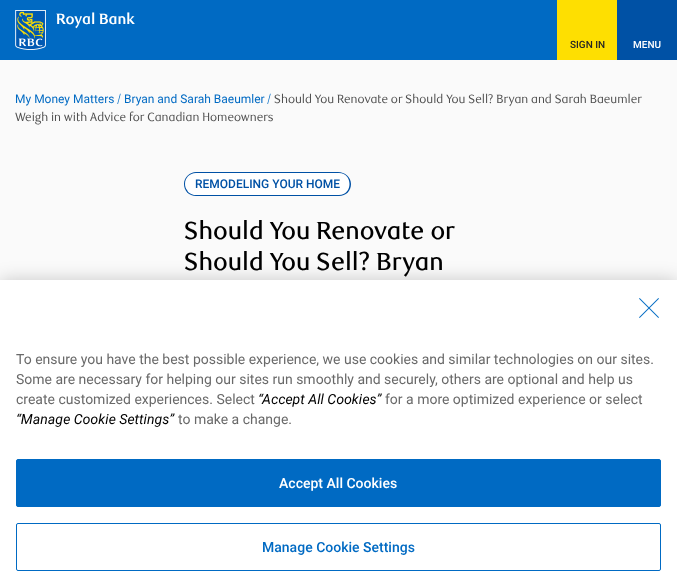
<?xml version="1.0" encoding="UTF-8"?>
<svg xmlns="http://www.w3.org/2000/svg" xmlns:xlink="http://www.w3.org/1999/xlink" width="677" height="587">
  <defs>
    <clipPath id="clip1"><rect x="184" y="172" width="167" height="25" rx="12.5" /></clipPath>
  </defs>
  <rect width="100%" height="100%" fill="#006ac3" />
  <image x="15" y="10" width="31" height="40" xlink:href="image1.png" />
  <rect x="557" width="60" height="60" fill="#fedf01" />
  <rect x="617" width="60" height="60" fill="#0051a5" />
  <rect y="60" width="677" height="220" fill="#fafafa" />
  <g clip-path="url(#clip1)">
    <path d="M 196.5 172 h 142 c 7 0 12.5 5.5 12.5 12.5 v -0.5 c 0 6.5 -5.5 12 -12 12 h -143 c -6.5 0 -12 -5.5 -12 -12 v 0.5 c 0 -7 5.5 -12.5 12.5 -12.5 z" fill="#ffffff" />
  </g>
  <path d="M 196 172 h 142 c 7 0 13 5 13 12 c 0 7 -5 12 -12 12 h -143 c -7 0 -12 -5 -12 -12 c 0 -7 6 -12 12 -12 z m 0 1 c -9 0 -14 10 -9 17 c 1 3 4 4 7 5 h 145 c 14 0 14 -22 0 -22 z" fill="#0051a5" fill-rule="evenodd" />
  <rect y="280" width="677" height="307" fill="#000000" fill-opacity="0.2" filter="blur(9px)" />
  <rect y="280" width="677" height="307" fill="#ffffff" />
  <image x="639" y="298" width="20" height="20" xlink:href="image2.png" />
  <rect x="16.5" y="459.5" width="644" height="47" rx="1.5" fill="#006ac3" stroke="#006ac3" />
  <rect x="16.5" y="523.5" width="644" height="47" rx="1.5" fill="none" stroke="#006ac3" />
  <text x="56" y="24" style="font-family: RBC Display; font-size: 15px; font-weight: bold; fill: #ffffff">Royal Bank</text>
  <text x="570" y="48" style="font-family: Roboto; font-size: 10px; font-weight: 500; fill: #252525">SIGN IN</text>
  <text x="633" y="48" style="font-family: Roboto; font-size: 10px; font-weight: 500; fill: #ffffff">MENU</text>
  <text x="15" y="103" style="font-family: Roboto; font-size: 12px; fill: #006ac3">My Money Matters</text>
  <text x="117" y="103" style="font-family: RBC Display; font-size: 12px; fill: #006ac3">/</text>
  <text x="124" y="103" style="font-family: Roboto; font-size: 12px; fill: #006ac3">Bryan and Sarah Baeumler</text>
  <text x="267" y="103" style="font-family: RBC Display; font-size: 12px; fill: #006ac3">/</text>
  <text x="274" y="103" style="font-family: RBC Display; font-size: 12px; fill: #4f4f4f">Should You Renovate or Should You Sell? Bryan and Sarah Baeumler</text>
  <text x="15" y="121" style="font-family: RBC Display; font-size: 12px; fill: #4f4f4f">Weigh in with Advice for Canadian Homeowners</text>
  <text x="195" y="188" style="font-family: Roboto; font-size: 12px; font-weight: 500; fill: #0051a5">REMODELING YOUR HOME</text>
  <text x="184" y="239" style="font-family: RBC Display; font-size: 24.75px; font-weight: 500; fill: #000000">Should You Renovate or</text>
  <text x="184" y="270" style="font-family: RBC Display; font-size: 24.75px; font-weight: 500; fill: #000000">Should You Sell? Bryan</text>
  <text x="16" y="364" style="font-family: Roboto; font-size: 14px; fill: #696969">To ensure you have the best possible experience, we use cookies and similar technologies on our sites.</text>
  <text x="16" y="384" style="font-family: Roboto; font-size: 14px; fill: #696969">Some are necessary for helping our sites run smoothly and securely, others are optional and help us</text>
  <text x="16" y="404" style="font-family: Roboto; font-size: 14px; fill: #696969">create customized experiences. Select</text>
  <text x="258" y="404" style="font-family: Roboto; font-size: 14px; font-style: italic; fill: #000000">“Accept All Cookies”</text>
  <text x="385" y="404" style="font-family: Roboto; font-size: 14px; fill: #696969">for a more optimized experience or select</text>
  <text x="16" y="424" style="font-family: Roboto; font-size: 14px; font-style: italic; fill: #000000">“Manage Cookie Settings”</text>
  <text x="178" y="424" style="font-family: Roboto; font-size: 14px; fill: #696969">to make a change.</text>
  <text x="279" y="488" style="font-family: Roboto; font-size: 14px; font-weight: 500; fill: #ffffff">Accept All Cookies</text>
  <text x="262" y="552" style="font-family: Roboto; font-size: 14px; font-weight: 500; fill: #006ac3">Manage Cookie Settings</text>
</svg>
